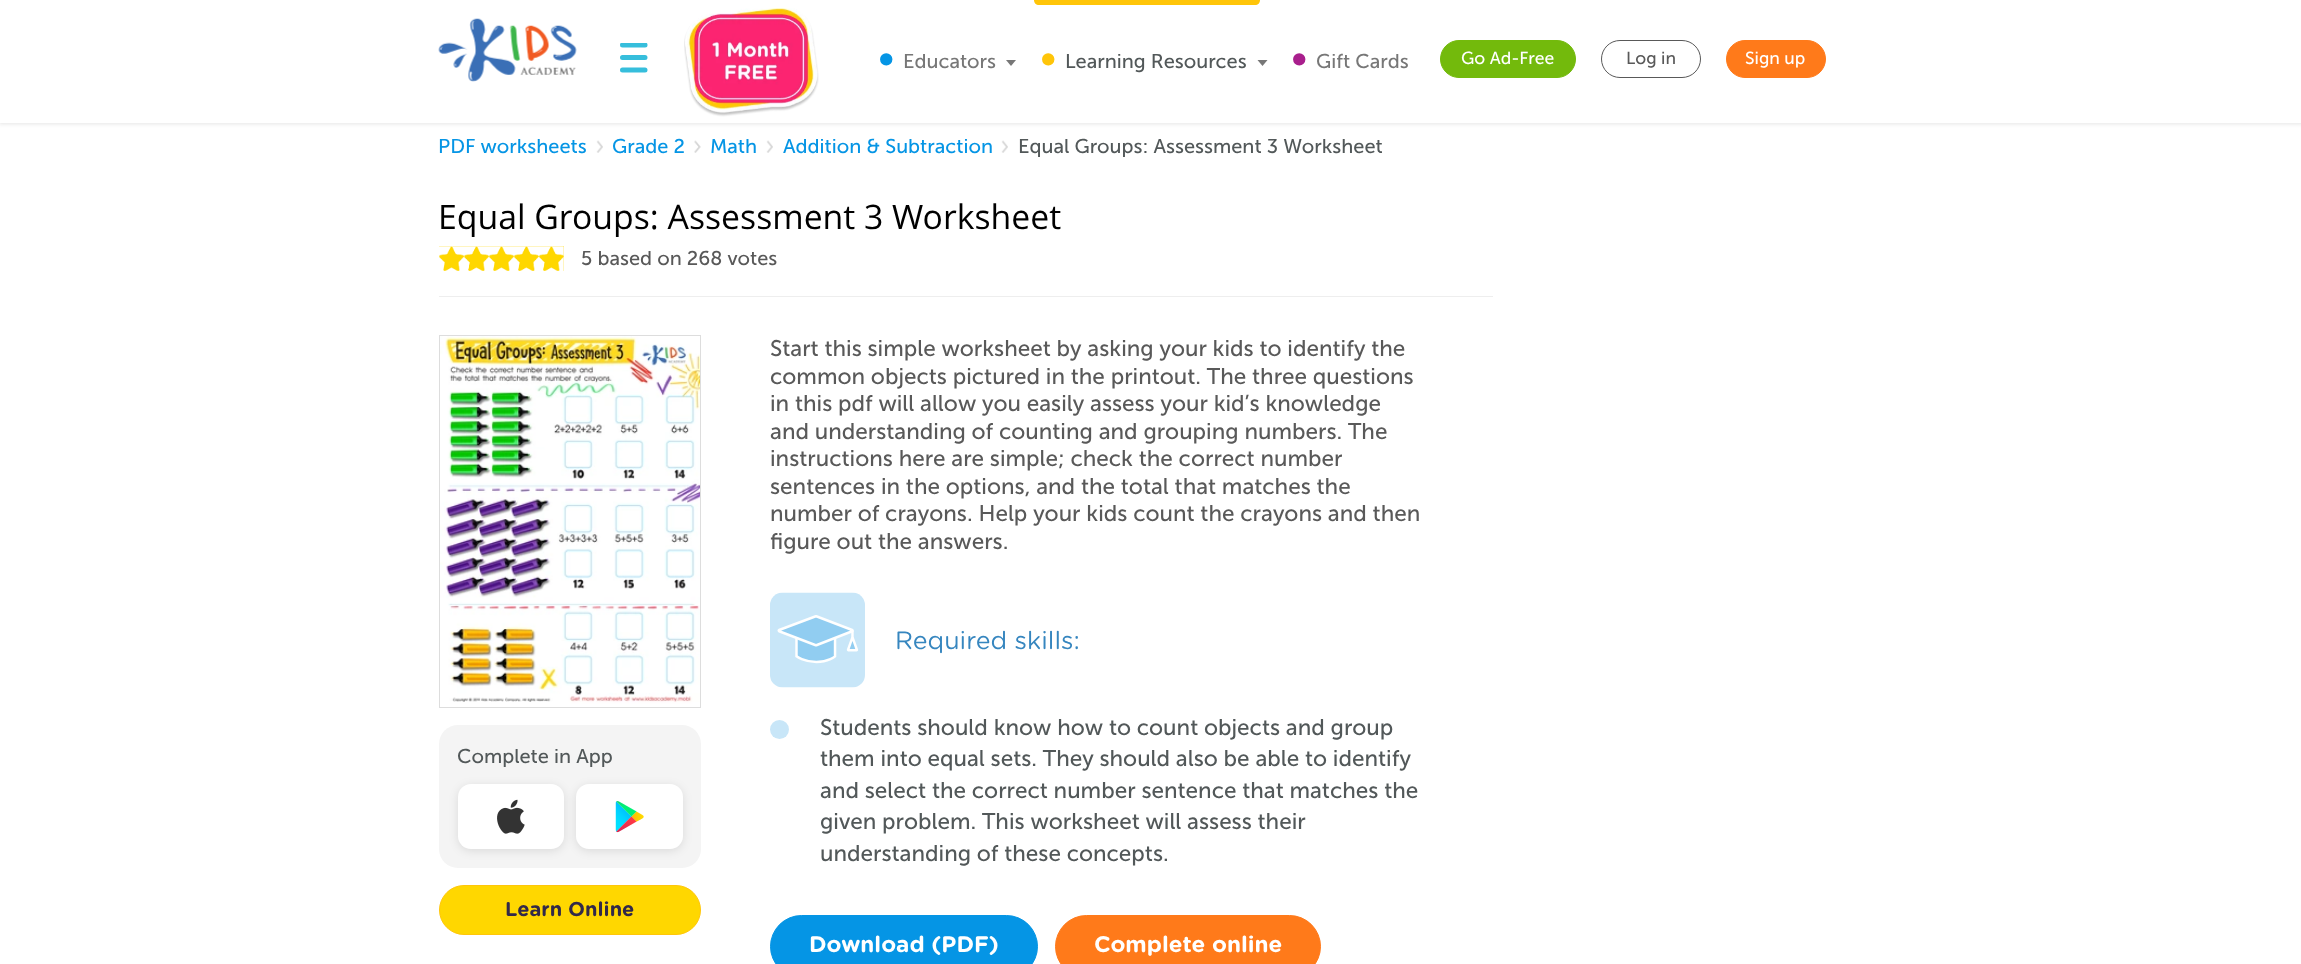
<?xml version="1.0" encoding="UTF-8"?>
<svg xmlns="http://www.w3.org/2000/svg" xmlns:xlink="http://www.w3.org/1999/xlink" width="2301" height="964">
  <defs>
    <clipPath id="clip1"><path d="M 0 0 h 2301 v 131 h -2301 z m 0 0 h 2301 v 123 h -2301 z" clip-rule="evenodd" /></clipPath>
    <clipPath id="clip2"><rect x="620" y="43" width="28" height="30" /></clipPath>
  </defs>
  <rect width="100%" height="100%" fill="#ffffff" />
  <g clip-path="url(#clip1)">
    <rect x="-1" y="-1" width="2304" height="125" fill="#000000" fill-opacity="0.1" filter="blur(2px)" />
  </g>
  <rect width="2301" height="123" rx="5" fill="#ffffff" />
  <image x="438" y="18" width="139" height="64" xlink:href="image1.png" />
  <g clip-path="url(#clip2)">
    <path d="M 622.5 45 h 22.5" fill="none" stroke="#36bedc" stroke-width="5" stroke-linecap="round" />
  </g>
  <path d="M 622.5 57.5 h 22.5 m -22.5 12.5 h 22.5" fill="none" stroke="#36bedc" stroke-width="5" stroke-linecap="round" />
  <image x="684" y="8" width="135" height="109" xlink:href="image2.png" />
  <path d="M 1006 60 h 10 l -5 6 z" fill="#777777" />
  <path d="M 1034 -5 h 226 v 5 c 0 3 -2 5 -5 5 h -216 c -3 0 -5 -2 -5 -5 z" fill="#ffc509" />
  <path d="M 1257.5 60 h 10 l -5 6 z" fill="#777777" />
  <rect x="1440.5" y="40.5" width="135" height="37" rx="18.5" fill="#73ba0c" stroke="#73ba0c" />
  <rect x="1601.5" y="40.5" width="99" height="37" rx="18.5" fill="none" stroke="#595959" />
  <rect x="1726.5" y="40.5" width="99" height="37" rx="18.5" fill="#ff7a1a" stroke="#ff7a1a" />
  <image x="596" y="140" width="7" height="13" xlink:href="image3.png" />
  <image x="694" y="140" width="7" height="13" xlink:href="image4.png" />
  <image x="766" y="140" width="7" height="13" xlink:href="image3.png" />
  <image x="1001" y="140" width="7" height="13" xlink:href="image3.png" />
  <rect x="439" y="246" width="125" height="25" fill="#ffd700" />
  <image x="439" y="246" width="125" height="25" xlink:href="image5.png" />
  <rect x="439" y="296" width="1054" height="1" fill="#eeeeee" />
  <rect x="439.5" y="335.5" width="261" height="372" fill="none" stroke="#dddddd" />
  <image x="440" y="336" width="260" height="370" xlink:href="image6.png" />
  <rect x="439" y="725" width="262" height="143" rx="19" fill="#f4f4f4" />
  <rect x="458" y="786" width="106" height="65" rx="13" fill="#000000" fill-opacity="0.1" filter="blur(5px)" />
  <rect x="458" y="784" width="106" height="65" rx="13" fill="#ffffff" />
  <image x="497" y="799" width="28" height="35" xlink:href="image7.png" />
  <rect x="576" y="786" width="107" height="65" rx="13" fill="#000000" fill-opacity="0.1" filter="blur(5px)" />
  <rect x="576" y="784" width="107" height="65" rx="13" fill="#ffffff" />
  <image x="615" y="801" width="29" height="32" xlink:href="image8.png" />
  <rect x="439.5" y="885.5" width="261" height="49" rx="24.5" fill="#ffd700" stroke="#ffc60a" />
  <image x="770" y="592" width="95" height="96" xlink:href="image9.png" />
  <circle cx="779.5" cy="729.5" r="9.5" fill="#c8e6f8" />
  <rect x="770.5" y="915.5" width="267" height="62" rx="31" fill="#0595e5" stroke="#0595e5" />
  <rect x="1055.5" y="915.5" width="265" height="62" rx="31" fill="#ff7a1a" stroke="#ff7a1a" />
  <text x="878" y="71" style="font-family: Museo Sans; font-size: 40px; fill: #0595e5">•</text>
  <text x="903" y="68" style="font-family: Museo Sans; font-size: 20px; fill: #777777">Educators</text>
  <text x="1040" y="71" style="font-family: Museo Sans; font-size: 40px; fill: #ffc509">•</text>
  <text x="1065" y="68" style="font-family: Museo Sans; font-size: 20px; fill: #525859">Learning Resources</text>
  <text x="1291" y="71" style="font-family: Museo Sans; font-size: 40px; fill: #a91f8d">•</text>
  <text x="1316" y="68" style="font-family: Museo Sans; font-size: 20px; fill: #777777">Gift Cards</text>
  <text x="1461" y="64" style="font-family: Museo Sans; font-size: 17.5px; fill: #ffffff">Go Ad-Free</text>
  <text x="1626" y="64" style="font-family: Museo Sans; font-size: 17.5px; fill: #595959">Log in</text>
  <text x="1745" y="64" style="font-family: Museo Sans; font-size: 17.5px; fill: #ffffff">Sign up</text>
  <text x="438" y="153" style="font-family: Museo Sans; font-size: 20px; fill: #0595e5">PDF worksheets</text>
  <text x="612" y="153" style="font-family: Museo Sans; font-size: 20px; fill: #0595e5">Grade 2</text>
  <text x="710" y="153" style="font-family: Museo Sans; font-size: 20px; fill: #0595e5">Math</text>
  <text x="783" y="153" style="font-family: Museo Sans; font-size: 20px; fill: #0595e5">Addition &amp; Subtraction</text>
  <text x="1018" y="153" style="font-family: Museo Sans; font-size: 20px; fill: #525859">Equal Groups: Assessment 3 Worksheet</text>
  <text x="438" y="229" style="font-family: Open Sans; font-size: 33.75px; fill: #000000">Equal Groups: Assessment 3 Worksheet</text>
  <text x="581" y="265" style="font-family: Museo Sans; font-size: 20px; fill: #595959">5 based on 268 votes</text>
  <text x="457" y="763" style="font-family: Museo Sans; font-size: 20px; fill: #525859">Complete in App</text>
  <text x="505" y="916" style="font-family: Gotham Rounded; font-size: 20px; font-weight: bold; fill: #322949">Learn Online</text>
  <text x="770" y="356" style="font-family: Museo Sans; font-size: 22.5px; fill: #595959">Start this simple worksheet by asking your kids to identify the</text>
  <text x="770" y="384" style="font-family: Museo Sans; font-size: 22.5px; fill: #595959">common objects pictured in the printout. The three questions</text>
  <text x="770" y="411" style="font-family: Museo Sans; font-size: 22.5px; fill: #595959">in this pdf will allow you easily assess your kid’s knowledge</text>
  <text x="770" y="439" style="font-family: Museo Sans; font-size: 22.5px; fill: #595959">and understanding of counting and grouping numbers. The</text>
  <text x="770" y="466" style="font-family: Museo Sans; font-size: 22.5px; fill: #595959">instructions here are simple; check the correct number</text>
  <text x="770" y="494" style="font-family: Museo Sans; font-size: 22.5px; fill: #595959">sentences in the options, and the total that matches the</text>
  <text x="770" y="521" style="font-family: Museo Sans; font-size: 22.5px; fill: #595959">number of crayons. Help your kids count the crayons and then</text>
  <text x="770" y="549" style="font-family: Museo Sans; font-size: 22.5px; fill: #595959">figure out the answers.</text>
  <text x="895" y="649" style="font-family: Gotham Rounded; font-size: 25px; fill: #3686bf">Required skills:</text>
  <text x="820" y="735" style="font-family: Museo Sans; font-size: 22.5px; fill: #525859">Students should know how to count objects and group</text>
  <text x="820" y="766" style="font-family: Museo Sans; font-size: 22.5px; fill: #525859">them into equal sets. They should also be able to identify</text>
  <text x="820" y="798" style="font-family: Museo Sans; font-size: 22.5px; fill: #525859">and select the correct number sentence that matches the</text>
  <text x="820" y="829" style="font-family: Museo Sans; font-size: 22.5px; fill: #525859">given problem. This worksheet will assess their</text>
  <text x="820" y="861" style="font-family: Museo Sans; font-size: 22.5px; fill: #525859">understanding of these concepts.</text>
  <text x="809" y="952" style="font-family: Gotham Rounded; font-size: 22.5px; font-weight: bold; fill: #ffffff">Download (PDF)</text>
  <text x="1094" y="952" style="font-family: Gotham Rounded; font-size: 22.5px; font-weight: bold; fill: #ffffff">Complete online</text>
</svg>
